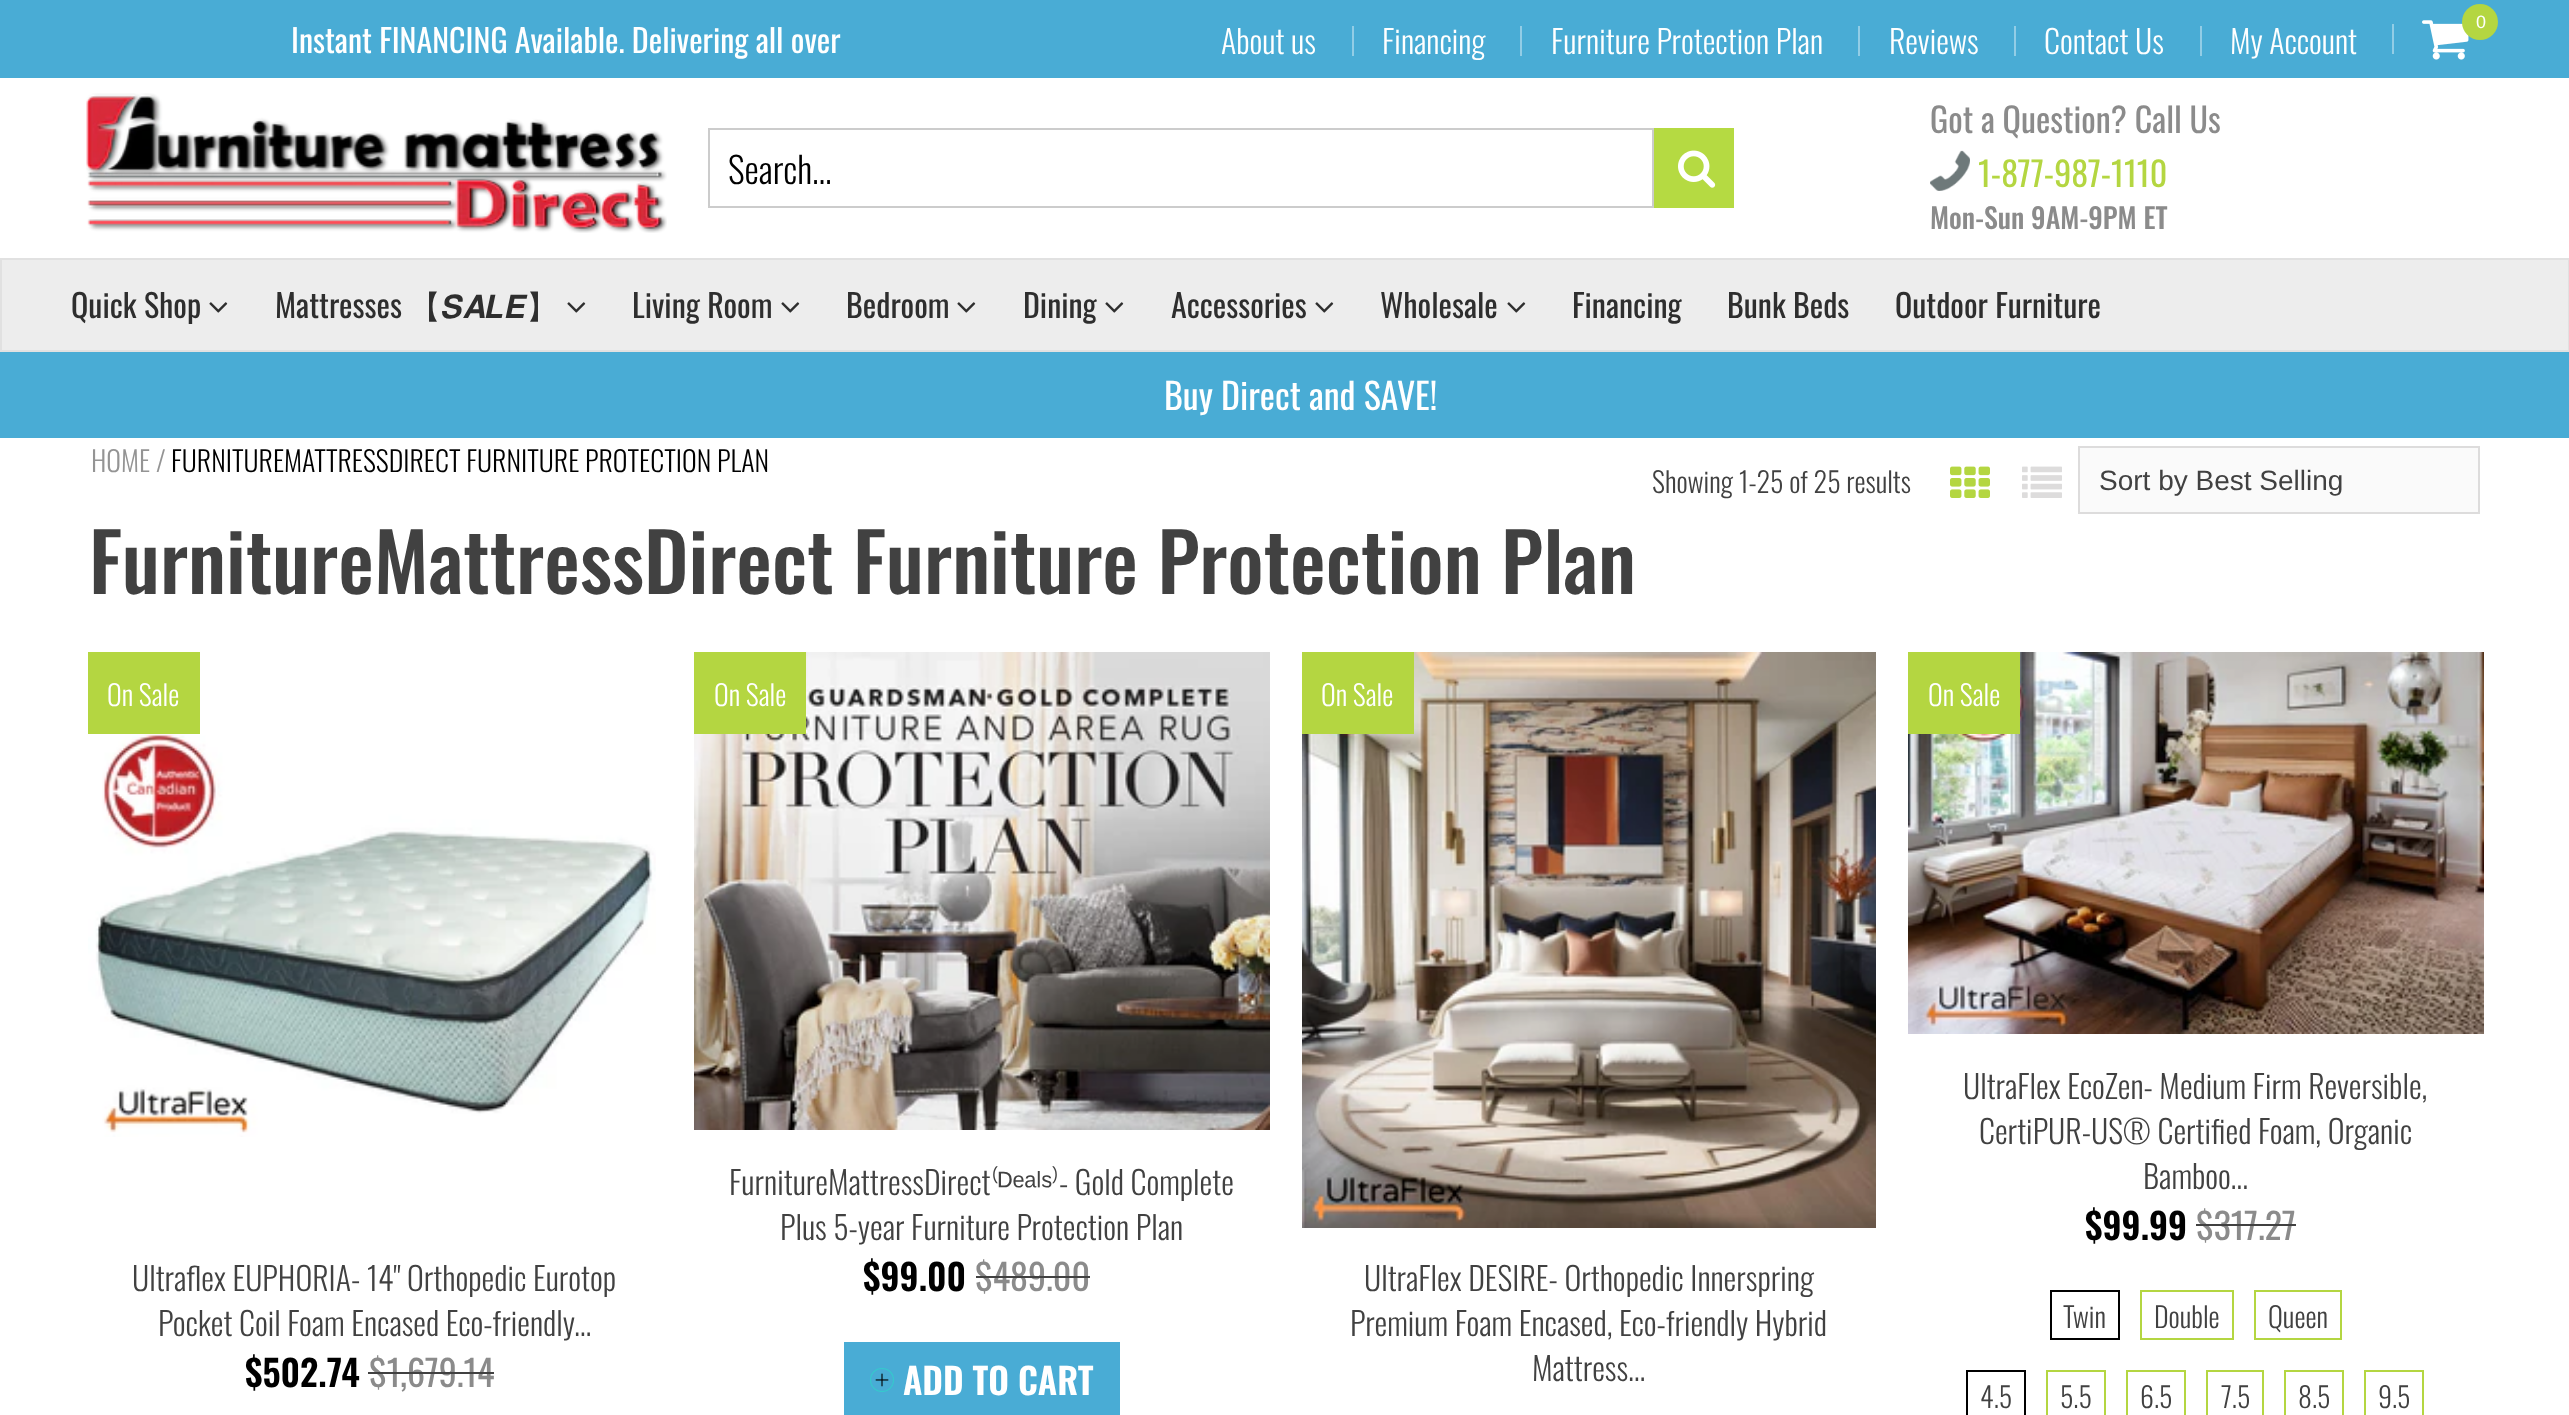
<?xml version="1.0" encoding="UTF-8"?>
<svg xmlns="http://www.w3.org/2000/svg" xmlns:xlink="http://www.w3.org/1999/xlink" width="2569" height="1415">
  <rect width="100%" height="100%" fill="#ffffff" />
  <rect width="2569" height="78" fill="#49acd5" />
  <rect x="2392" y="24" width="2" height="30" fill="#92cde6" />
  <image x="2422" y="20" width="47" height="40" xlink:href="image1.png" />
  <circle cx="2480" cy="22" r="18" fill="#b4d641" />
  <rect x="1352" y="26" width="2" height="30" fill="#92cde6" />
  <rect x="1520" y="26" width="2" height="30" fill="#92cde6" />
  <rect x="1858" y="26" width="2" height="30" fill="#92cde6" />
  <rect x="2014" y="26" width="2" height="30" fill="#92cde6" />
  <rect x="2200" y="26" width="2" height="30" fill="#92cde6" />
  <image x="86" y="93" width="581" height="140" xlink:href="image2.png" />
  <rect x="709" y="129" width="944" height="78" fill="none" stroke="#cccccc" stroke-width="2" />
  <rect x="1654" y="128" width="80" height="80" fill="#b5da42" />
  <image x="1678" y="150" width="38" height="38" xlink:href="image3.png" />
  <image x="1930" y="150" width="40" height="41" xlink:href="image4.png" />
  <rect x="1" y="259" width="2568" height="92" fill="#ededed" stroke="#e1e1e1" stroke-width="2" />
  <image x="209" y="302" width="19" height="11" xlink:href="image5.png" />
  <image x="567" y="302" width="19" height="11" xlink:href="image5.png" />
  <image x="781" y="302" width="19" height="11" xlink:href="image5.png" />
  <image x="957" y="302" width="19" height="11" xlink:href="image5.png" />
  <image x="1105" y="302" width="19" height="11" xlink:href="image5.png" />
  <image x="1315" y="302" width="19" height="11" xlink:href="image5.png" />
  <image x="1507" y="302" width="19" height="11" xlink:href="image5.png" />
  <rect y="352" width="2569" height="86" fill="#49acd5" />
  <image x="1950" y="466" width="40" height="32" xlink:href="image6.png" />
  <image x="2022" y="466" width="40" height="32" xlink:href="image7.png" />
  <rect x="2079" y="447" width="400" height="66" fill="#fafafa" stroke="#dddcdc" stroke-width="2" />
  <image x="88" y="733" width="568" height="404" xlink:href="image8.png" />
  <rect x="88" y="652" width="112" height="82" fill="#b4d641" />
  <image x="694" y="652" width="576" height="478" xlink:href="image9.png" />
  <rect x="694" y="652" width="112" height="82" fill="#b4d641" />
  <rect x="844" y="1342" width="276" height="73" fill="#49acd5" />
  <image x="870" y="1368" width="24" height="24" xlink:href="image10.png" />
  <image x="1302" y="652" width="574" height="576" xlink:href="image11.png" />
  <rect x="1302" y="652" width="112" height="82" fill="#b4d641" />
  <image x="1908" y="652" width="576" height="382" xlink:href="image12.png" />
  <rect x="1908" y="652" width="112" height="82" fill="#b4d641" />
  <rect x="2051" y="1291" width="68" height="48" fill="none" stroke="#000000" stroke-width="2" />
  <rect x="2141" y="1291" width="92" height="48" fill="none" stroke="#b4d641" stroke-width="2" />
  <rect x="2255" y="1291" width="86" height="48" fill="none" stroke="#b4d641" stroke-width="2" />
  <rect x="1967" y="1371" width="58" height="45" fill="none" stroke="#000000" stroke-width="2" />
  <rect x="2047" y="1371" width="58" height="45" fill="none" stroke="#b4d641" stroke-width="2" />
  <rect x="2127" y="1371" width="58" height="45" fill="none" stroke="#b4d641" stroke-width="2" />
  <rect x="2207" y="1371" width="56" height="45" fill="none" stroke="#b4d641" stroke-width="2" />
  <rect x="2285" y="1371" width="58" height="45" fill="none" stroke="#b4d641" stroke-width="2" />
  <rect x="2365" y="1371" width="58" height="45" fill="none" stroke="#b4d641" stroke-width="2" />
  <text x="291" y="53" style="font-family: Oswald; font-size: 32px; fill: #ffffff">Instant FINANCING Available. Delivering all over</text>
  <text x="2476" y="28" style="font-family: Liberation Sans; font-size: 18px; fill: #ffffff">0</text>
  <text x="1221" y="54" style="font-family: Oswald; font-size: 32px; font-weight: 300; fill: #ffffff">About us</text>
  <text x="1382" y="54" style="font-family: Oswald; font-size: 32px; font-weight: 300; fill: #ffffff">Financing</text>
  <text x="1551" y="54" style="font-family: Oswald; font-size: 32px; font-weight: 300; fill: #ffffff">Furniture Protection Plan</text>
  <text x="1889" y="54" style="font-family: Oswald; font-size: 32px; font-weight: 300; fill: #ffffff">Reviews</text>
  <text x="2044" y="54" style="font-family: Oswald; font-size: 32px; font-weight: 300; fill: #ffffff">Contact Us</text>
  <text x="2230" y="54" style="font-family: Oswald; font-size: 32px; font-weight: 300; fill: #ffffff">My Account</text>
  <text x="728" y="184" style="font-family: Oswald; font-size: 36px; font-weight: 300; fill: #000000">Search...</text>
  <text x="1930" y="133" style="font-family: Oswald; font-size: 34px; fill: #8b8b8b">Got a Question? Call Us</text>
  <text x="1978" y="187" style="font-family: Oswald; font-size: 34px; fill: #b4d641">1-877-987-1110</text>
  <text x="1930" y="229" style="font-family: Oswald; font-size: 28px; font-weight: 500; fill: #8b8b8b">Mon-Sun 9AM-9PM ET</text>
  <text x="71" y="318" style="font-family: Oswald; font-size: 32px; fill: #2e2e2e">Quick Shop</text>
  <text x="275" y="318" style="font-family: Oswald; font-size: 32px; fill: #2e2e2e">Mattresses</text>
  <text x="409" y="318" style="font-family: WenQuanYi Zen Hei; font-size: 32px; font-weight: 500; fill: #2e2e2e">【</text>
  <text x="441" y="318" style="font-family: FreeSans; font-size: 32px; fill: #2e2e2e">𝑺𝑨𝑳𝑬</text>
  <text x="526" y="318" style="font-family: WenQuanYi Zen Hei; font-size: 32px; font-weight: 500; fill: #2e2e2e">】</text>
  <text x="632" y="318" style="font-family: Oswald; font-size: 32px; fill: #2e2e2e">Living Room</text>
  <text x="846" y="318" style="font-family: Oswald; font-size: 32px; fill: #2e2e2e">Bedroom</text>
  <text x="1023" y="318" style="font-family: Oswald; font-size: 32px; fill: #2e2e2e">Dining</text>
  <text x="1171" y="318" style="font-family: Oswald; font-size: 32px; fill: #2e2e2e">Accessories</text>
  <text x="1380" y="318" style="font-family: Oswald; font-size: 32px; fill: #2e2e2e">Wholesale</text>
  <text x="1572" y="318" style="font-family: Oswald; font-size: 32px; fill: #2e2e2e">Financing</text>
  <text x="1727" y="318" style="font-family: Oswald; font-size: 32px; fill: #2e2e2e">Bunk Beds</text>
  <text x="1895" y="318" style="font-family: Oswald; font-size: 32px; fill: #2e2e2e">Outdoor Furniture</text>
  <text x="1164" y="410" style="font-family: Oswald; font-size: 36px; fill: #ffffff">Buy Direct and SAVE!</text>
  <text x="91" y="472" style="font-family: Oswald; font-size: 28px; font-weight: 300; fill: #949494">HOME</text>
  <text x="156" y="472" style="font-family: Oswald; font-size: 28px; font-weight: 300; fill: #949494">/</text>
  <text x="171" y="472" style="font-family: Oswald; font-size: 28px; font-weight: 300; fill: #000000">FURNITUREMATTRESSDIRECT FURNITURE PROTECTION PLAN</text>
  <text x="1652" y="493" style="font-family: Oswald; font-size: 28px; font-weight: 300; fill: #414141">Showing 1-25 of 25 results</text>
  <text x="2099" y="490" style="font-family: Liberation Sans; font-size: 28px; fill: #414141">Sort by Best Selling</text>
  <text x="89" y="594" style="font-family: Oswald; font-size: 80px; font-weight: 500; fill: #414141">FurnitureMattressDirect Furniture Protection Plan</text>
  <text x="107" y="706" style="font-family: Oswald; font-size: 28px; font-weight: 300; fill: #ffffff">On Sale</text>
  <text x="132" y="1291" style="font-family: Oswald; font-size: 32px; font-weight: 300; fill: #414141">Ultraflex EUPHORIA- 14" Orthopedic Eurotop</text>
  <text x="158" y="1336" style="font-family: Oswald; font-size: 32px; font-weight: 300; fill: #414141">Pocket Coil Foam Encased Eco-friendly...</text>
  <text x="245" y="1387" style="font-family: Oswald; font-size: 36px; font-weight: 600; fill: #000000">$502.74</text>
  <text x="369" y="1387" style="font-family: Oswald; font-size: 36px; fill: #8b8b8b">$1,679.14</text>
  <rect x="368" y="1372" width="126" height="2" fill="#414141" />
  <text x="714" y="706" style="font-family: Oswald; font-size: 28px; font-weight: 300; fill: #ffffff">On Sale</text>
  <text x="729" y="1195" style="font-family: Oswald; font-size: 32px; font-weight: 300; fill: #414141">FurnitureMattressDirect</text>
  <text x="991" y="1195" style="font-family: Noto Sans; font-size: 32px; font-weight: 300; fill: #414141">⁽</text>
  <text x="998" y="1195" style="font-family: Liberation Sans; font-size: 32px; fill: #414141">ᴰᵉᵃˡˢ</text>
  <text x="1052" y="1195" style="font-family: Noto Sans; font-size: 32px; font-weight: 300; fill: #414141">⁾</text>
  <text x="1059" y="1195" style="font-family: Oswald; font-size: 32px; font-weight: 300; fill: #414141">- Gold Complete</text>
  <text x="780" y="1240" style="font-family: Oswald; font-size: 32px; font-weight: 300; fill: #414141">Plus 5-year Furniture Protection Plan</text>
  <text x="863" y="1291" style="font-family: Oswald; font-size: 36px; font-weight: 600; fill: #000000">$99.00</text>
  <text x="975" y="1291" style="font-family: Oswald; font-size: 36px; fill: #8b8b8b">$489.00</text>
  <rect x="976" y="1276" width="114" height="2" fill="#414141" />
  <text x="903" y="1395" style="font-family: Oswald; font-size: 36px; font-weight: 600; fill: #ffffff">ADD TO CART</text>
  <text x="1321" y="706" style="font-family: Oswald; font-size: 28px; font-weight: 300; fill: #ffffff">On Sale</text>
  <text x="1364" y="1291" style="font-family: Oswald; font-size: 32px; font-weight: 300; fill: #414141">UltraFlex DESIRE- Orthopedic Innerspring</text>
  <text x="1350" y="1336" style="font-family: Oswald; font-size: 32px; font-weight: 300; fill: #414141">Premium Foam Encased, Eco-friendly Hybrid</text>
  <text x="1532" y="1381" style="font-family: Oswald; font-size: 32px; font-weight: 300; fill: #414141">Mattress...</text>
  <text x="1928" y="706" style="font-family: Oswald; font-size: 28px; font-weight: 300; fill: #ffffff">On Sale</text>
  <text x="1963" y="1099" style="font-family: Oswald; font-size: 32px; font-weight: 300; fill: #414141">UltraFlex EcoZen- Medium Firm Reversible,</text>
  <text x="1979" y="1144" style="font-family: Oswald; font-size: 32px; font-weight: 300; fill: #414141">CertiPUR-US® Certified Foam, Organic</text>
  <text x="2143" y="1189" style="font-family: Oswald; font-size: 32px; font-weight: 300; fill: #414141">Bamboo...</text>
  <text x="2085" y="1240" style="font-family: Oswald; font-size: 36px; font-weight: 600; fill: #000000">$99.99</text>
  <text x="2196" y="1240" style="font-family: Oswald; font-size: 36px; fill: #8b8b8b">$317.27</text>
  <rect x="2196" y="1224" width="100" height="2" fill="#414141" />
  <text x="2063" y="1328" style="font-family: Oswald; font-size: 28px; font-weight: 300; fill: #414141">Twin</text>
  <text x="2154" y="1328" style="font-family: Oswald; font-size: 28px; font-weight: 300; fill: #414141">Double</text>
  <text x="2268" y="1328" style="font-family: Oswald; font-size: 28px; font-weight: 300; fill: #414141">Queen</text>
  <text x="1980" y="1408" style="font-family: Oswald; font-size: 28px; font-weight: 300; fill: #414141">4.5</text>
  <text x="2060" y="1408" style="font-family: Oswald; font-size: 28px; font-weight: 300; fill: #414141">5.5</text>
  <text x="2140" y="1408" style="font-family: Oswald; font-size: 28px; font-weight: 300; fill: #414141">6.5</text>
  <text x="2221" y="1408" style="font-family: Oswald; font-size: 28px; font-weight: 300; fill: #414141">7.5</text>
  <text x="2298" y="1408" style="font-family: Oswald; font-size: 28px; font-weight: 300; fill: #414141">8.5</text>
  <text x="2378" y="1408" style="font-family: Oswald; font-size: 28px; font-weight: 300; fill: #414141">9.5</text>
</svg>
